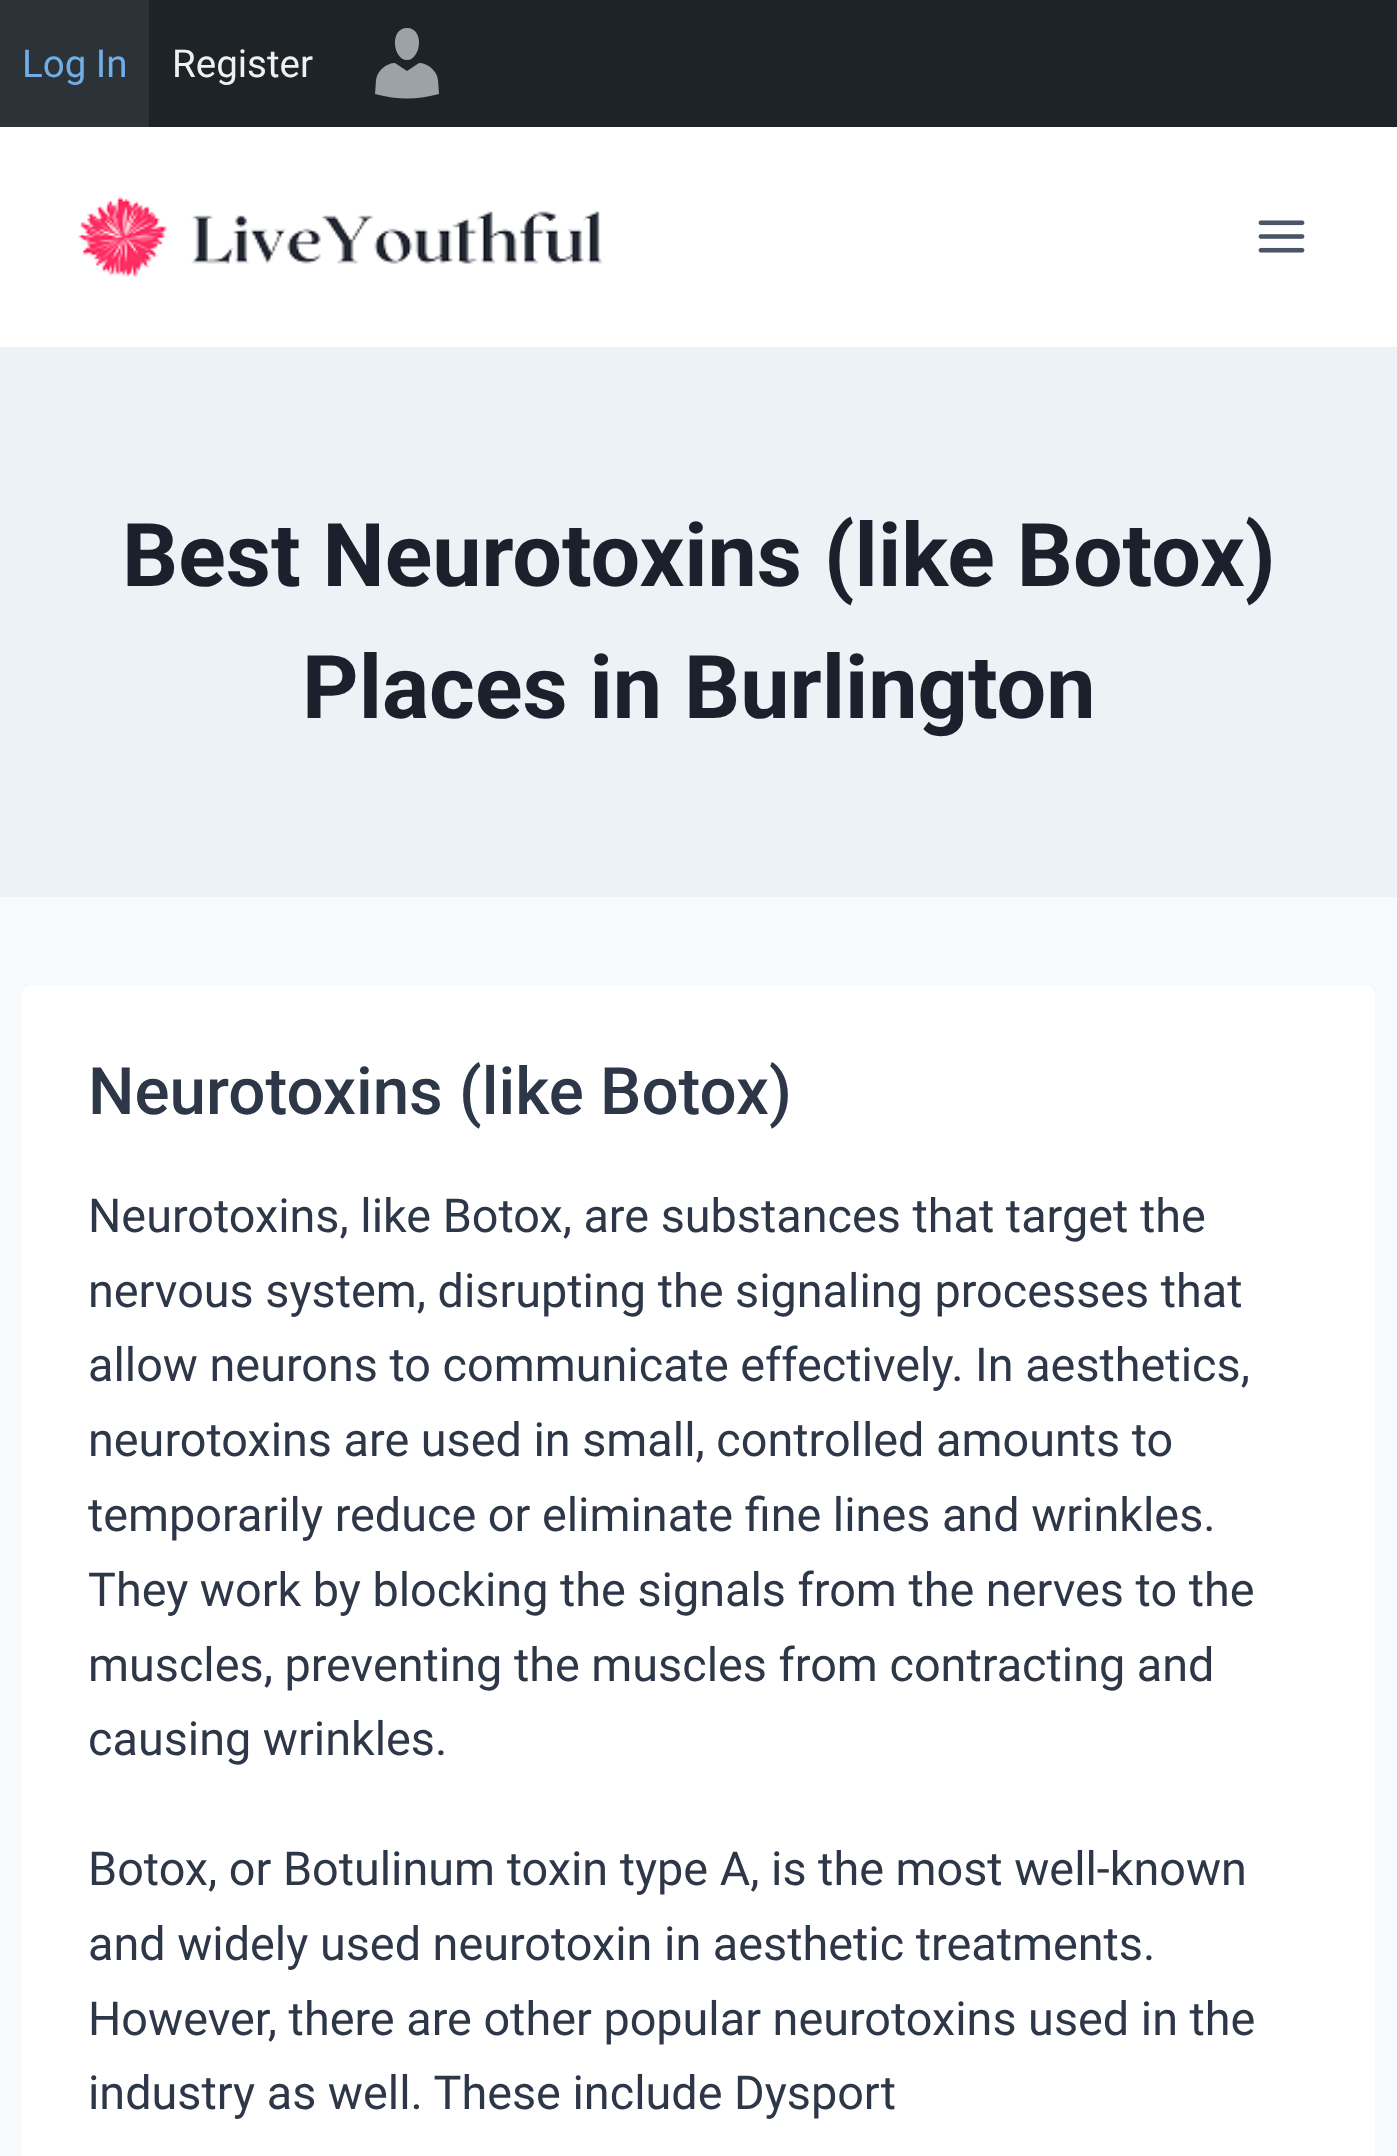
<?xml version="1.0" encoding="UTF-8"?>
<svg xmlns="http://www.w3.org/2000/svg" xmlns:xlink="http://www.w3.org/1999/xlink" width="1397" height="2156">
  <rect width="100%" height="100%" fill="#f7fafc" />
  <rect x="149" width="1248" height="127" fill="#1d2327" />
  <rect width="149" height="127" fill="#2c3338" />
  <path d="M 407 60 c -14 0 -18 -32 0 -32 c 18 0 14 32 0 32 z m 0 11 l 12 -8 c 9 0 18 8 19 17 l 1 14 c -24 6 -40 6 -64 0 l 1 -14 c 1 -9 10 -17 19 -17 z" fill="#9ca2a7" />
  <rect y="127" width="1397" height="220" fill="#ffffff" />
  <image x="78" y="196" width="525" height="82" xlink:href="image1.png" />
  <image x="1258" y="220" width="47" height="33" xlink:href="image2.png" />
  <rect y="347" width="1397" height="550" fill="#edf2f7" />
  <rect x="22" y="985" width="1353" height="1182" rx="11" fill="#ffffff" />
  <text x="22" y="77" style="font-family: Roboto; font-size: 38.5px; fill: #72aee6">Log In</text>
  <text x="172" y="77" style="font-family: Roboto; font-size: 38.5px; fill: #f0f0f1">Register</text>
  <text x="122" y="586" style="font-family: Roboto; font-size: 88px; font-weight: bold; fill: #1a202c">Best Neurotoxins (like Botox)</text>
  <text x="302" y="718" style="font-family: Roboto; font-size: 88px; font-weight: bold; fill: #1a202c">Places in Burlington</text>
  <text x="88" y="1114" style="font-family: Roboto; font-size: 65.5px; font-weight: 500; fill: #2d3748">Neurotoxins (like Botox)</text>
  <text x="88" y="1232" style="font-family: Roboto; font-size: 46.75px; fill: #2d3748">Neurotoxins, like Botox, are substances that target the</text>
  <text x="88" y="1307" style="font-family: Roboto; font-size: 46.75px; fill: #2d3748">nervous system, disrupting the signaling processes that</text>
  <text x="88" y="1381" style="font-family: Roboto; font-size: 46.75px; fill: #2d3748">allow neurons to communicate effectively. In aesthetics,</text>
  <text x="88" y="1456" style="font-family: Roboto; font-size: 46.75px; fill: #2d3748">neurotoxins are used in small, controlled amounts to</text>
  <text x="88" y="1531" style="font-family: Roboto; font-size: 46.75px; fill: #2d3748">temporarily reduce or eliminate fine lines and wrinkles.</text>
  <text x="88" y="1606" style="font-family: Roboto; font-size: 46.75px; fill: #2d3748">They work by blocking the signals from the nerves to the</text>
  <text x="88" y="1681" style="font-family: Roboto; font-size: 46.75px; fill: #2d3748">muscles, preventing the muscles from contracting and</text>
  <text x="88" y="1755" style="font-family: Roboto; font-size: 46.75px; fill: #2d3748">causing wrinkles.</text>
  <text x="88" y="1885" style="font-family: Roboto; font-size: 46.75px; fill: #2d3748">Botox, or Botulinum toxin type A, is the most well-known</text>
  <text x="88" y="1960" style="font-family: Roboto; font-size: 46.75px; fill: #2d3748">and widely used neurotoxin in aesthetic treatments.</text>
  <text x="88" y="2035" style="font-family: Roboto; font-size: 46.75px; fill: #2d3748">However, there are other popular neurotoxins used in the</text>
  <text x="88" y="2109" style="font-family: Roboto; font-size: 46.75px; fill: #2d3748">industry as well. These include Dysport</text>
</svg>
